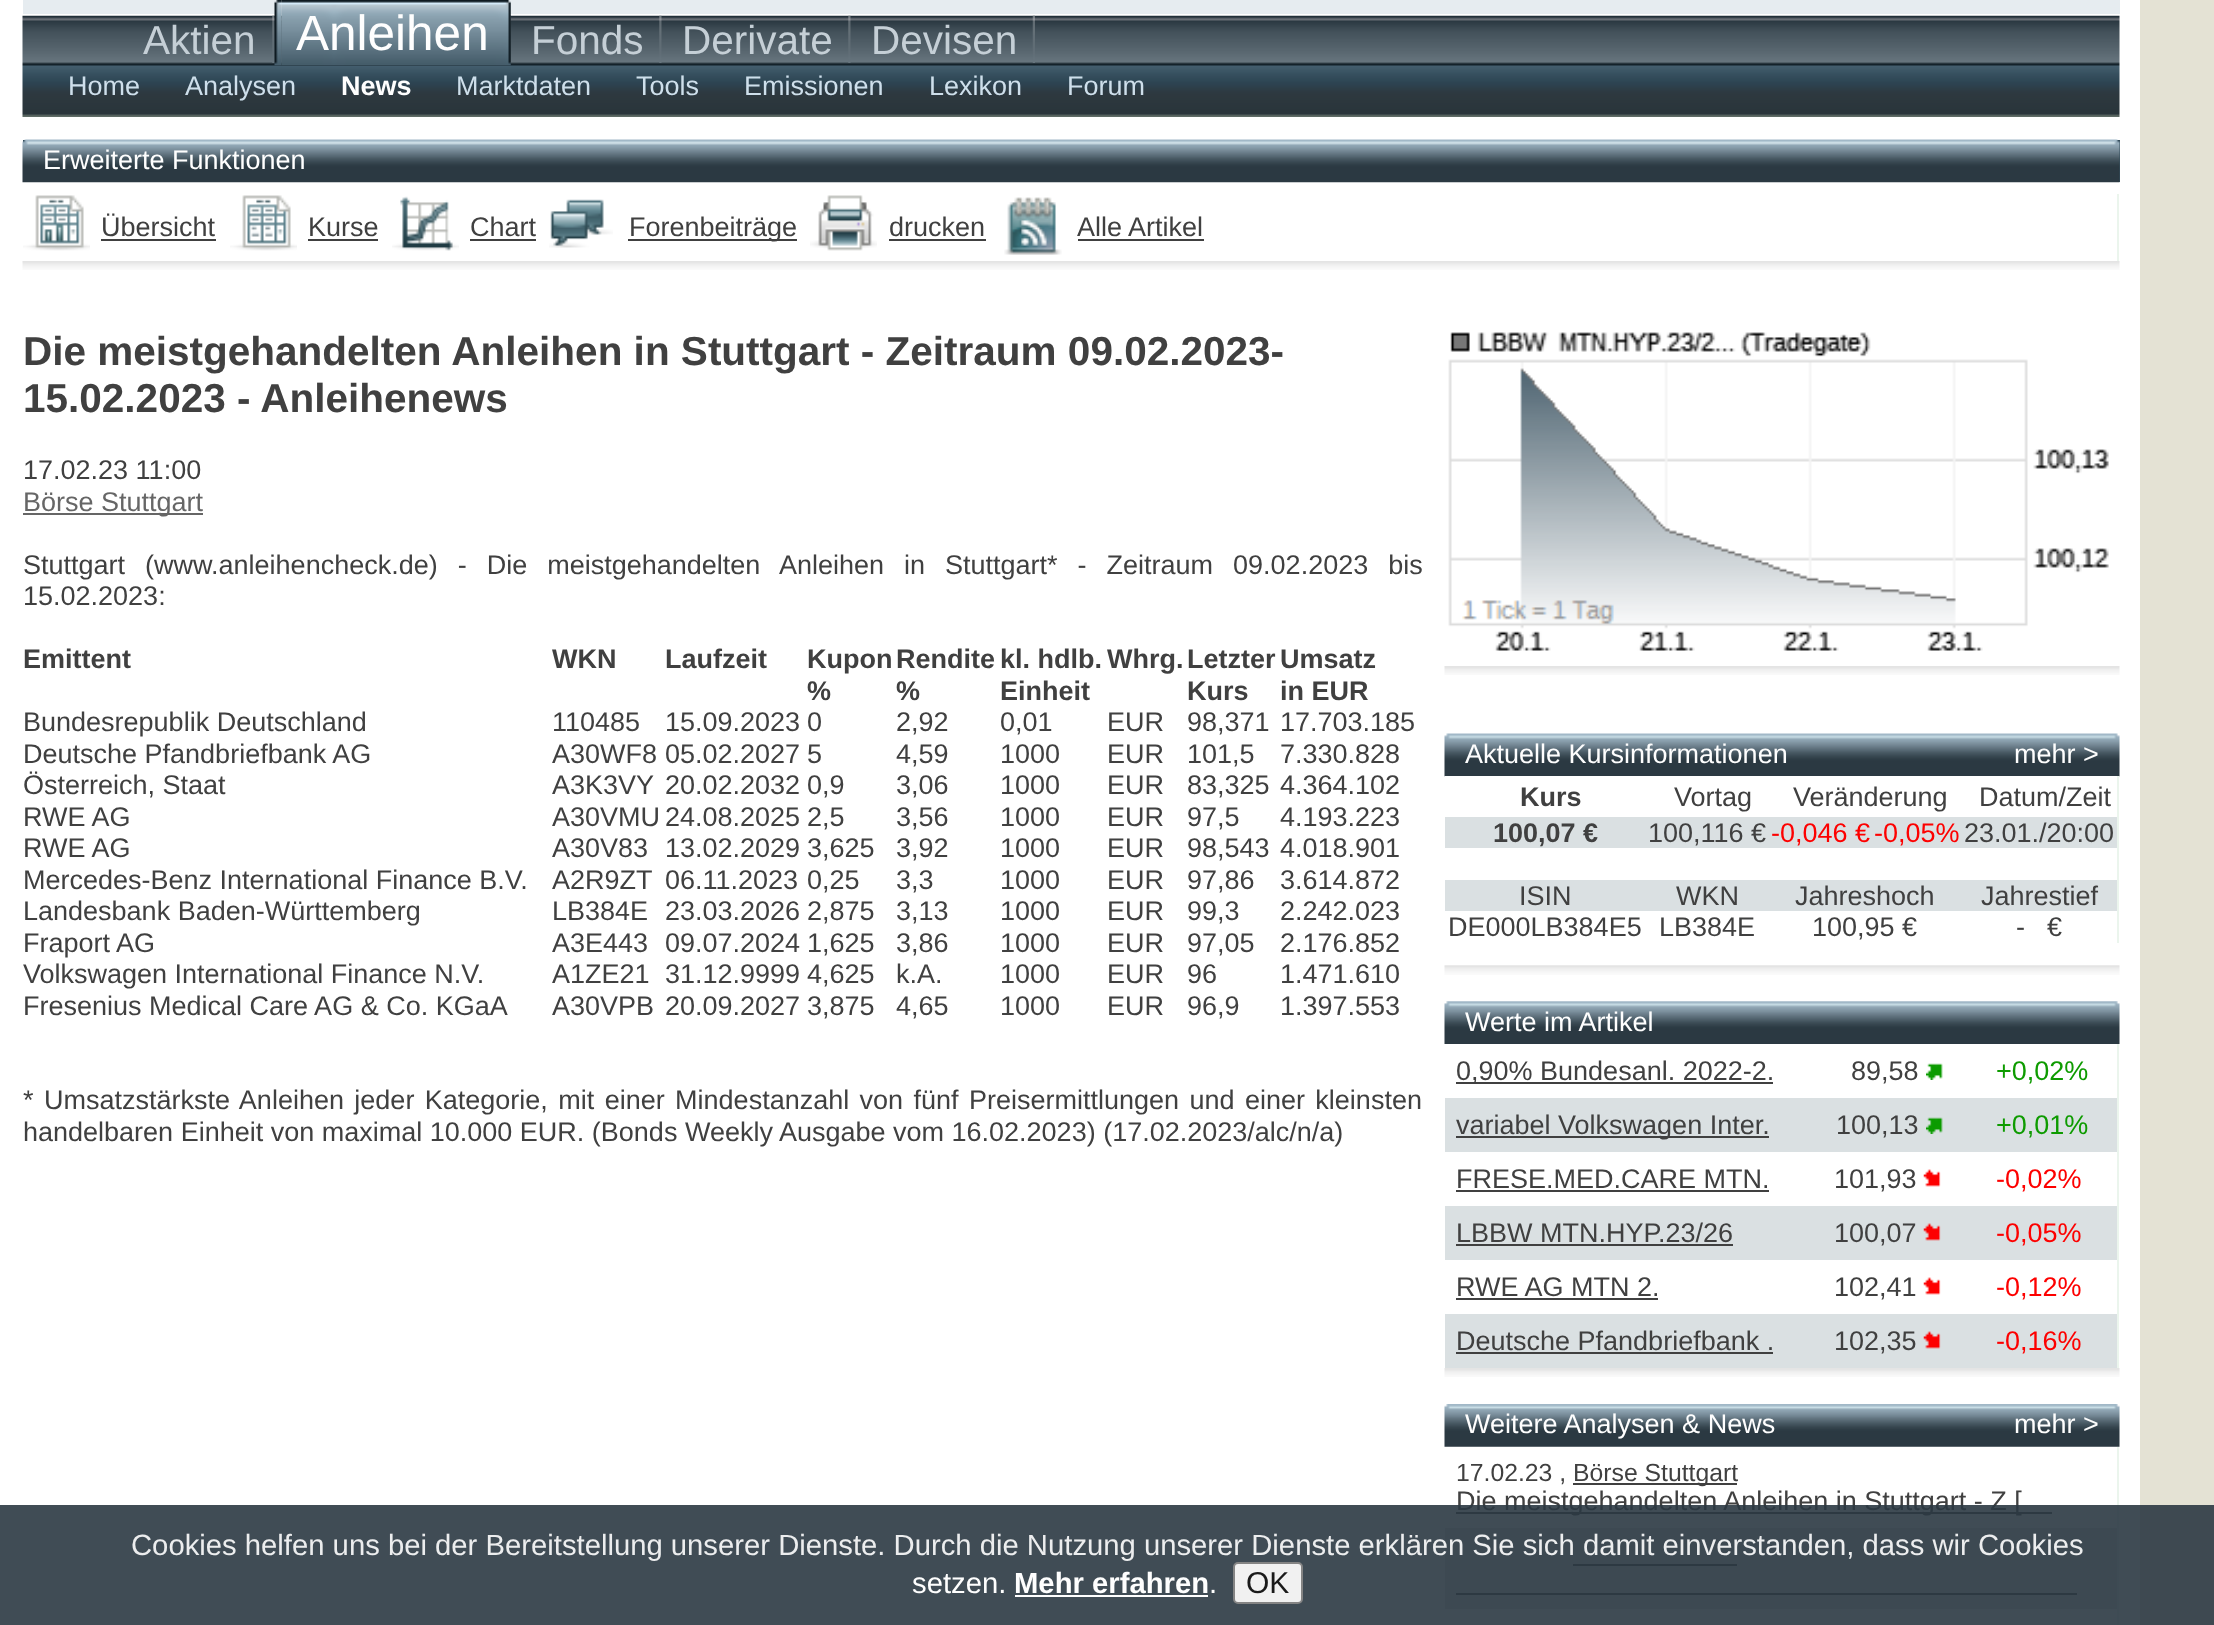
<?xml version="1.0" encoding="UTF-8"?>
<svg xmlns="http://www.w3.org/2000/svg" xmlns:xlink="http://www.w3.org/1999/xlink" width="2214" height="1625">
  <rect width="100%" height="100%" fill="#e4e2d4" />
  <rect width="2140" height="1625" fill="#ffffff" />
  <rect x="23" width="2097" height="14" fill="#e6ecf0" />
  <image x="22" y="15" width="2098" height="102" xlink:href="image1.png" />
  <image x="510" y="15" width="1" height="48" xlink:href="image2.png" />
  <image x="272" y="15" width="3" height="48" xlink:href="image5.png" />
  <image x="274" y="0" width="8" height="66" xlink:href="image3.png" />
  <image x="281" y="0" width="230" height="66" xlink:href="image4.png" />
  <image x="659" y="15" width="3" height="48" xlink:href="image5.png" />
  <image x="848" y="15" width="3" height="48" xlink:href="image5.png" />
  <image x="1032" y="15" width="3" height="48" xlink:href="image6.png" />
  <image x="22" y="261" width="2098" height="9" xlink:href="image7.png" />
  <rect x="23" y="140" width="2097" height="42" fill="#354e5d" />
  <image x="22" y="139" width="2098" height="44" xlink:href="image8.png" />
  <rect x="2117" y="194" width="2" height="67" fill="#ebf5ed" />
  <image x="23" y="195" width="67" height="56" xlink:href="image9.png" />
  <rect x="101" y="239" width="115" height="2" fill="#404040" />
  <image x="230" y="195" width="67" height="56" xlink:href="image10.png" />
  <rect x="308" y="239" width="70" height="2" fill="#404040" />
  <image x="392" y="196" width="67" height="55" xlink:href="image11.png" />
  <rect x="470" y="239" width="66" height="2" fill="#404040" />
  <image x="549" y="199" width="64" height="49" xlink:href="image12.png" />
  <rect x="628" y="239" width="169" height="2" fill="#404040" />
  <image x="810" y="195" width="67" height="56" xlink:href="image13.png" />
  <rect x="889" y="239" width="97" height="2" fill="#404040" />
  <image x="1004" y="197" width="58" height="58" xlink:href="image14.png" />
  <rect x="1078" y="239" width="126" height="2" fill="#404040" />
  <rect x="23" y="513" width="180" height="2" fill="#666666" />
  <image x="1444" y="666" width="676" height="9" xlink:href="image15.png" />
  <image x="1448" y="332" width="661" height="319" xlink:href="image16.png" />
  <image x="1444" y="965" width="676" height="10" xlink:href="image17.png" />
  <image x="1444" y="733" width="676" height="44" xlink:href="image18.png" />
  <rect x="2117" y="776" width="2" height="167" fill="#ebf5ed" />
  <rect x="1445" y="776" width="672" height="1" fill="#ffffff" />
  <rect x="1445" y="817" width="672" height="31" fill="#dae0e2" />
  <rect x="1445" y="880" width="672" height="31" fill="#dae0e2" />
  <image x="1444" y="1368" width="676" height="9" xlink:href="image15.png" />
  <image x="1444" y="1001" width="676" height="43" xlink:href="image19.png" />
  <rect x="2117" y="1044" width="2" height="324" fill="#ebf5ed" />
  <rect x="1456" y="1082" width="317" height="2" fill="#404040" />
  <image x="1926" y="1063" width="17" height="17" xlink:href="image20.png" />
  <rect x="1445" y="1098" width="672" height="54" fill="#dae0e2" />
  <rect x="1456" y="1136" width="313" height="2" fill="#404040" />
  <image x="1926" y="1117" width="17" height="17" xlink:href="image21.png" />
  <rect x="1456" y="1190" width="313" height="2" fill="#404040" />
  <image x="1923" y="1169" width="18" height="18" xlink:href="image22.png" />
  <rect x="1445" y="1206" width="672" height="54" fill="#dae0e2" />
  <rect x="1456" y="1244" width="277" height="2" fill="#404040" />
  <image x="1923" y="1223" width="18" height="18" xlink:href="image23.png" />
  <rect x="1456" y="1298" width="202" height="2" fill="#404040" />
  <image x="1923" y="1277" width="18" height="18" xlink:href="image22.png" />
  <rect x="1445" y="1314" width="672" height="54" fill="#dae0e2" />
  <rect x="1456" y="1352" width="317" height="2" fill="#404040" />
  <image x="1923" y="1331" width="18" height="18" xlink:href="image23.png" />
  <image x="1444" y="1404" width="676" height="43" xlink:href="image24.png" />
  <rect x="2117" y="1447" width="2" height="178" fill="#ebf5ed" />
  <rect x="1573" y="1483" width="164" height="2" fill="#404040" />
  <rect x="1456" y="1512" width="596" height="2" fill="#404040" />
  <rect x="1445" y="1528" width="672" height="81" fill="#dae0e2" />
  <rect x="1573" y="1564" width="164" height="2" fill="#404040" />
  <rect x="1456" y="1593" width="621" height="2" fill="#404040" />
  <text x="296" y="50" style="font-family: Liberation Sans; font-size: 49.5px; fill: #fefefe">Anleihen</text>
  <text x="68" y="95" style="font-family: Liberation Sans; font-size: 27px; fill: #cedfeb">Home</text>
  <text x="185" y="95" style="font-family: Liberation Sans; font-size: 27px; fill: #cedfeb">Analysen</text>
  <text x="341" y="95" style="font-family: Liberation Sans; font-size: 27px; font-weight: bold; fill: #fefefe">News</text>
  <text x="456" y="95" style="font-family: Liberation Sans; font-size: 27px; fill: #cedfeb">Marktdaten</text>
  <text x="636" y="95" style="font-family: Liberation Sans; font-size: 27px; fill: #cedfeb">Tools</text>
  <text x="744" y="95" style="font-family: Liberation Sans; font-size: 27px; fill: #cedfeb">Emissionen</text>
  <text x="929" y="95" style="font-family: Liberation Sans; font-size: 27px; fill: #cedfeb">Lexikon</text>
  <text x="1067" y="95" style="font-family: Liberation Sans; font-size: 27px; fill: #cedfeb">Forum</text>
  <text x="143" y="54" style="font-family: Liberation Sans; font-size: 40.5px; fill: #c5cfd6">Aktien</text>
  <text x="531" y="54" style="font-family: Liberation Sans; font-size: 40.5px; fill: #c5cfd6">Fonds</text>
  <text x="682" y="54" style="font-family: Liberation Sans; font-size: 40.5px; fill: #c5cfd6">Derivate</text>
  <text x="871" y="54" style="font-family: Liberation Sans; font-size: 40.5px; fill: #c5cfd6">Devisen</text>
  <text x="43" y="169" style="font-family: Liberation Sans; font-size: 27px; fill: #fefefe">Erweiterte Funktionen</text>
  <text x="101" y="236" style="font-family: Liberation Sans; font-size: 27px; fill: #404040">Übersicht</text>
  <text x="308" y="236" style="font-family: Liberation Sans; font-size: 27px; fill: #404040">Kurse</text>
  <text x="470" y="236" style="font-family: Liberation Sans; font-size: 27px; fill: #404040">Chart</text>
  <text x="629" y="236" style="font-family: Liberation Sans; font-size: 27px; fill: #404040">Forenbeiträge</text>
  <text x="889" y="236" style="font-family: Liberation Sans; font-size: 27px; fill: #404040">drucken</text>
  <text x="1077" y="236" style="font-family: Liberation Sans; font-size: 27px; fill: #404040">Alle Artikel</text>
  <text x="23" y="365" style="font-family: Liberation Sans; font-size: 40.5px; font-weight: bold; fill: #404040">Die meistgehandelten Anleihen in Stuttgart - Zeitraum 09.02.2023-</text>
  <text x="23" y="412" style="font-family: Liberation Sans; font-size: 40.5px; font-weight: bold; fill: #404040">15.02.2023 - Anleihenews</text>
  <text x="23" y="479" style="font-family: Liberation Sans; font-size: 27px; fill: #404040">17.02.23 11:00</text>
  <text x="23" y="511" style="font-family: Liberation Sans; font-size: 27px; fill: #666666">Börse Stuttgart</text>
  <text x="23" y="574" word-spacing="12.5" style="font-family: Liberation Sans; font-size: 27px; fill: #404040">Stuttgart (www.anleihencheck.de) - Die meistgehandelten Anleihen in Stuttgart* - Zeitraum 09.02.2023 bis</text>
  <text x="23" y="605" style="font-family: Liberation Sans; font-size: 27px; fill: #404040">15.02.2023:</text>
  <text x="23" y="668" style="font-family: Liberation Sans; font-size: 27px; font-weight: bold; fill: #404040">Emittent</text>
  <text x="552" y="668" style="font-family: Liberation Sans; font-size: 27px; font-weight: bold; fill: #404040">WKN</text>
  <text x="665" y="668" style="font-family: Liberation Sans; font-size: 27px; font-weight: bold; fill: #404040">Laufzeit</text>
  <text x="807" y="668" style="font-family: Liberation Sans; font-size: 27px; font-weight: bold; fill: #404040">Kupon</text>
  <text x="807" y="700" style="font-family: Liberation Sans; font-size: 27px; font-weight: bold; fill: #404040">%</text>
  <text x="896" y="668" style="font-family: Liberation Sans; font-size: 27px; font-weight: bold; fill: #404040">Rendite</text>
  <text x="896" y="700" style="font-family: Liberation Sans; font-size: 27px; font-weight: bold; fill: #404040">%</text>
  <text x="1000" y="668" style="font-family: Liberation Sans; font-size: 27px; font-weight: bold; fill: #404040">kl. hdlb.</text>
  <text x="1000" y="700" style="font-family: Liberation Sans; font-size: 27px; font-weight: bold; fill: #404040">Einheit</text>
  <text x="1107" y="668" style="font-family: Liberation Sans; font-size: 27px; font-weight: bold; fill: #404040">Whrg.</text>
  <text x="1187" y="668" style="font-family: Liberation Sans; font-size: 27px; font-weight: bold; fill: #404040">Letzter</text>
  <text x="1187" y="700" style="font-family: Liberation Sans; font-size: 27px; font-weight: bold; fill: #404040">Kurs</text>
  <text x="1280" y="668" style="font-family: Liberation Sans; font-size: 27px; font-weight: bold; fill: #404040">Umsatz</text>
  <text x="1280" y="700" style="font-family: Liberation Sans; font-size: 27px; font-weight: bold; fill: #404040">in EUR</text>
  <text x="23" y="731" style="font-family: Liberation Sans; font-size: 27px; fill: #404040">Bundesrepublik Deutschland</text>
  <text x="552" y="731" style="font-family: Liberation Sans; font-size: 27px; fill: #404040">110485</text>
  <text x="665" y="731" style="font-family: Liberation Sans; font-size: 27px; fill: #404040">15.09.2023</text>
  <text x="807" y="731" style="font-family: Liberation Sans; font-size: 27px; fill: #404040">0</text>
  <text x="896" y="731" style="font-family: Liberation Sans; font-size: 27px; fill: #404040">2,92</text>
  <text x="1000" y="731" style="font-family: Liberation Sans; font-size: 27px; fill: #404040">0,01</text>
  <text x="1107" y="731" style="font-family: Liberation Sans; font-size: 27px; fill: #404040">EUR</text>
  <text x="1187" y="731" style="font-family: Liberation Sans; font-size: 27px; fill: #404040">98,371</text>
  <text x="1280" y="731" style="font-family: Liberation Sans; font-size: 27px; fill: #404040">17.703.185</text>
  <text x="23" y="763" style="font-family: Liberation Sans; font-size: 27px; fill: #404040">Deutsche Pfandbriefbank AG</text>
  <text x="552" y="763" style="font-family: Liberation Sans; font-size: 27px; fill: #404040">A30WF8</text>
  <text x="665" y="763" style="font-family: Liberation Sans; font-size: 27px; fill: #404040">05.02.2027</text>
  <text x="807" y="763" style="font-family: Liberation Sans; font-size: 27px; fill: #404040">5</text>
  <text x="896" y="763" style="font-family: Liberation Sans; font-size: 27px; fill: #404040">4,59</text>
  <text x="1000" y="763" style="font-family: Liberation Sans; font-size: 27px; fill: #404040">1000</text>
  <text x="1107" y="763" style="font-family: Liberation Sans; font-size: 27px; fill: #404040">EUR</text>
  <text x="1187" y="763" style="font-family: Liberation Sans; font-size: 27px; fill: #404040">101,5</text>
  <text x="1280" y="763" style="font-family: Liberation Sans; font-size: 27px; fill: #404040">7.330.828</text>
  <text x="23" y="794" style="font-family: Liberation Sans; font-size: 27px; fill: #404040">Österreich, Staat</text>
  <text x="552" y="794" style="font-family: Liberation Sans; font-size: 27px; fill: #404040">A3K3VY</text>
  <text x="665" y="794" style="font-family: Liberation Sans; font-size: 27px; fill: #404040">20.02.2032</text>
  <text x="807" y="794" style="font-family: Liberation Sans; font-size: 27px; fill: #404040">0,9</text>
  <text x="896" y="794" style="font-family: Liberation Sans; font-size: 27px; fill: #404040">3,06</text>
  <text x="1000" y="794" style="font-family: Liberation Sans; font-size: 27px; fill: #404040">1000</text>
  <text x="1107" y="794" style="font-family: Liberation Sans; font-size: 27px; fill: #404040">EUR</text>
  <text x="1187" y="794" style="font-family: Liberation Sans; font-size: 27px; fill: #404040">83,325</text>
  <text x="1280" y="794" style="font-family: Liberation Sans; font-size: 27px; fill: #404040">4.364.102</text>
  <text x="23" y="826" style="font-family: Liberation Sans; font-size: 27px; fill: #404040">RWE AG</text>
  <text x="552" y="826" style="font-family: Liberation Sans; font-size: 27px; fill: #404040">A30VMU</text>
  <text x="665" y="826" style="font-family: Liberation Sans; font-size: 27px; fill: #404040">24.08.2025</text>
  <text x="807" y="826" style="font-family: Liberation Sans; font-size: 27px; fill: #404040">2,5</text>
  <text x="896" y="826" style="font-family: Liberation Sans; font-size: 27px; fill: #404040">3,56</text>
  <text x="1000" y="826" style="font-family: Liberation Sans; font-size: 27px; fill: #404040">1000</text>
  <text x="1107" y="826" style="font-family: Liberation Sans; font-size: 27px; fill: #404040">EUR</text>
  <text x="1187" y="826" style="font-family: Liberation Sans; font-size: 27px; fill: #404040">97,5</text>
  <text x="1280" y="826" style="font-family: Liberation Sans; font-size: 27px; fill: #404040">4.193.223</text>
  <text x="23" y="857" style="font-family: Liberation Sans; font-size: 27px; fill: #404040">RWE AG</text>
  <text x="552" y="857" style="font-family: Liberation Sans; font-size: 27px; fill: #404040">A30V83</text>
  <text x="665" y="857" style="font-family: Liberation Sans; font-size: 27px; fill: #404040">13.02.2029</text>
  <text x="807" y="857" style="font-family: Liberation Sans; font-size: 27px; fill: #404040">3,625</text>
  <text x="896" y="857" style="font-family: Liberation Sans; font-size: 27px; fill: #404040">3,92</text>
  <text x="1000" y="857" style="font-family: Liberation Sans; font-size: 27px; fill: #404040">1000</text>
  <text x="1107" y="857" style="font-family: Liberation Sans; font-size: 27px; fill: #404040">EUR</text>
  <text x="1187" y="857" style="font-family: Liberation Sans; font-size: 27px; fill: #404040">98,543</text>
  <text x="1280" y="857" style="font-family: Liberation Sans; font-size: 27px; fill: #404040">4.018.901</text>
  <text x="23" y="889" style="font-family: Liberation Sans; font-size: 27px; fill: #404040">Mercedes-Benz International Finance B.V.</text>
  <text x="552" y="889" style="font-family: Liberation Sans; font-size: 27px; fill: #404040">A2R9ZT</text>
  <text x="665" y="889" style="font-family: Liberation Sans; font-size: 27px; fill: #404040">06.11.2023</text>
  <text x="807" y="889" style="font-family: Liberation Sans; font-size: 27px; fill: #404040">0,25</text>
  <text x="896" y="889" style="font-family: Liberation Sans; font-size: 27px; fill: #404040">3,3</text>
  <text x="1000" y="889" style="font-family: Liberation Sans; font-size: 27px; fill: #404040">1000</text>
  <text x="1107" y="889" style="font-family: Liberation Sans; font-size: 27px; fill: #404040">EUR</text>
  <text x="1187" y="889" style="font-family: Liberation Sans; font-size: 27px; fill: #404040">97,86</text>
  <text x="1280" y="889" style="font-family: Liberation Sans; font-size: 27px; fill: #404040">3.614.872</text>
  <text x="23" y="920" style="font-family: Liberation Sans; font-size: 27px; fill: #404040">Landesbank Baden-Württemberg</text>
  <text x="552" y="920" style="font-family: Liberation Sans; font-size: 27px; fill: #404040">LB384E</text>
  <text x="665" y="920" style="font-family: Liberation Sans; font-size: 27px; fill: #404040">23.03.2026</text>
  <text x="807" y="920" style="font-family: Liberation Sans; font-size: 27px; fill: #404040">2,875</text>
  <text x="896" y="920" style="font-family: Liberation Sans; font-size: 27px; fill: #404040">3,13</text>
  <text x="1000" y="920" style="font-family: Liberation Sans; font-size: 27px; fill: #404040">1000</text>
  <text x="1107" y="920" style="font-family: Liberation Sans; font-size: 27px; fill: #404040">EUR</text>
  <text x="1187" y="920" style="font-family: Liberation Sans; font-size: 27px; fill: #404040">99,3</text>
  <text x="1280" y="920" style="font-family: Liberation Sans; font-size: 27px; fill: #404040">2.242.023</text>
  <text x="23" y="952" style="font-family: Liberation Sans; font-size: 27px; fill: #404040">Fraport AG</text>
  <text x="552" y="952" style="font-family: Liberation Sans; font-size: 27px; fill: #404040">A3E443</text>
  <text x="665" y="952" style="font-family: Liberation Sans; font-size: 27px; fill: #404040">09.07.2024</text>
  <text x="807" y="952" style="font-family: Liberation Sans; font-size: 27px; fill: #404040">1,625</text>
  <text x="896" y="952" style="font-family: Liberation Sans; font-size: 27px; fill: #404040">3,86</text>
  <text x="1000" y="952" style="font-family: Liberation Sans; font-size: 27px; fill: #404040">1000</text>
  <text x="1107" y="952" style="font-family: Liberation Sans; font-size: 27px; fill: #404040">EUR</text>
  <text x="1187" y="952" style="font-family: Liberation Sans; font-size: 27px; fill: #404040">97,05</text>
  <text x="1280" y="952" style="font-family: Liberation Sans; font-size: 27px; fill: #404040">2.176.852</text>
  <text x="23" y="983" style="font-family: Liberation Sans; font-size: 27px; fill: #404040">Volkswagen International Finance N.V.</text>
  <text x="552" y="983" style="font-family: Liberation Sans; font-size: 27px; fill: #404040">A1ZE21</text>
  <text x="665" y="983" style="font-family: Liberation Sans; font-size: 27px; fill: #404040">31.12.9999</text>
  <text x="807" y="983" style="font-family: Liberation Sans; font-size: 27px; fill: #404040">4,625</text>
  <text x="896" y="983" style="font-family: Liberation Sans; font-size: 27px; fill: #404040">k.A.</text>
  <text x="1000" y="983" style="font-family: Liberation Sans; font-size: 27px; fill: #404040">1000</text>
  <text x="1107" y="983" style="font-family: Liberation Sans; font-size: 27px; fill: #404040">EUR</text>
  <text x="1187" y="983" style="font-family: Liberation Sans; font-size: 27px; fill: #404040">96</text>
  <text x="1280" y="983" style="font-family: Liberation Sans; font-size: 27px; fill: #404040">1.471.610</text>
  <text x="23" y="1015" style="font-family: Liberation Sans; font-size: 27px; fill: #404040">Fresenius Medical Care AG &amp; Co. KGaA</text>
  <text x="552" y="1015" style="font-family: Liberation Sans; font-size: 27px; fill: #404040">A30VPB</text>
  <text x="665" y="1015" style="font-family: Liberation Sans; font-size: 27px; fill: #404040">20.09.2027</text>
  <text x="807" y="1015" style="font-family: Liberation Sans; font-size: 27px; fill: #404040">3,875</text>
  <text x="896" y="1015" style="font-family: Liberation Sans; font-size: 27px; fill: #404040">4,65</text>
  <text x="1000" y="1015" style="font-family: Liberation Sans; font-size: 27px; fill: #404040">1000</text>
  <text x="1107" y="1015" style="font-family: Liberation Sans; font-size: 27px; fill: #404040">EUR</text>
  <text x="1187" y="1015" style="font-family: Liberation Sans; font-size: 27px; fill: #404040">96,9</text>
  <text x="1280" y="1015" style="font-family: Liberation Sans; font-size: 27px; fill: #404040">1.397.553</text>
  <text x="23" y="1109" word-spacing="2.9" style="font-family: Liberation Sans; font-size: 27px; fill: #404040">* Umsatzstärkste Anleihen jeder Kategorie, mit einer Mindestanzahl von fünf Preisermittlungen und einer kleinsten</text>
  <text x="23" y="1141" style="font-family: Liberation Sans; font-size: 27px; fill: #404040">handelbaren Einheit von maximal 10.000 EUR. (Bonds Weekly Ausgabe vom 16.02.2023) (17.02.2023/alc/n/a)</text>
  <text x="1465" y="763" style="font-family: Liberation Sans; font-size: 27px; fill: #fefefe">Aktuelle Kursinformationen</text>
  <text x="2014" y="763" style="font-family: Liberation Sans; font-size: 27px; fill: #fefefe">mehr &gt;</text>
  <text x="1520" y="806" style="font-family: Liberation Sans; font-size: 27px; font-weight: bold; fill: #404040">Kurs</text>
  <text x="1674" y="806" style="font-family: Liberation Sans; font-size: 27px; fill: #404040">Vortag</text>
  <text x="1793" y="806" style="font-family: Liberation Sans; font-size: 27px; fill: #404040">Veränderung</text>
  <text x="1979" y="806" style="font-family: Liberation Sans; font-size: 27px; fill: #404040">Datum/Zeit</text>
  <text x="1493" y="842" style="font-family: Liberation Sans; font-size: 27px; font-weight: bold; fill: #404040">100,07 €</text>
  <text x="1648" y="842" style="font-family: Liberation Sans; font-size: 27px; fill: #404040">100,116 €</text>
  <text x="1771" y="842" style="font-family: Liberation Sans; font-size: 27px; fill: #fd0100">-0,046 €</text>
  <text x="1874" y="842" style="font-family: Liberation Sans; font-size: 27px; fill: #fd0100">-0,05%</text>
  <text x="1964" y="842" style="font-family: Liberation Sans; font-size: 27px; fill: #404040">23.01./20:00</text>
  <text x="1519" y="905" style="font-family: Liberation Sans; font-size: 27px; fill: #404040">ISIN</text>
  <text x="1676" y="905" style="font-family: Liberation Sans; font-size: 27px; fill: #404040">WKN</text>
  <text x="1795" y="905" style="font-family: Liberation Sans; font-size: 27px; fill: #404040">Jahreshoch</text>
  <text x="1981" y="905" style="font-family: Liberation Sans; font-size: 27px; fill: #404040">Jahrestief</text>
  <text x="1448" y="936" style="font-family: Liberation Sans; font-size: 27px; fill: #404040">DE000LB384E5</text>
  <text x="1659" y="936" style="font-family: Liberation Sans; font-size: 27px; fill: #404040">LB384E</text>
  <text x="1812" y="936" style="font-family: Liberation Sans; font-size: 27px; fill: #404040">100,95 €</text>
  <text x="2016" y="936" style="font-family: Liberation Sans; font-size: 27px; fill: #404040">-</text>
  <text x="2047" y="936" style="font-family: Liberation Sans; font-size: 27px; fill: #404040">€</text>
  <text x="1465" y="1031" style="font-family: Liberation Sans; font-size: 27px; fill: #fefefe">Werte im Artikel</text>
  <text x="1456" y="1080" style="font-family: Liberation Sans; font-size: 27px; fill: #404040">0,90% Bundesanl. 2022-2.</text>
  <text x="1851" y="1080" style="font-family: Liberation Sans; font-size: 27px; fill: #404040">89,58</text>
  <text x="1996" y="1080" style="font-family: Liberation Sans; font-size: 27px; fill: #0e9b00">+0,02%</text>
  <text x="1456" y="1134" style="font-family: Liberation Sans; font-size: 27px; fill: #404040">variabel Volkswagen Inter.</text>
  <text x="1836" y="1134" style="font-family: Liberation Sans; font-size: 27px; fill: #404040">100,13</text>
  <text x="1996" y="1134" style="font-family: Liberation Sans; font-size: 27px; fill: #0e9b00">+0,01%</text>
  <text x="1456" y="1188" style="font-family: Liberation Sans; font-size: 27px; fill: #404040">FRESE.MED.CARE MTN.</text>
  <text x="1834" y="1188" style="font-family: Liberation Sans; font-size: 27px; fill: #404040">101,93</text>
  <text x="1996" y="1188" style="font-family: Liberation Sans; font-size: 27px; fill: #fd0100">-0,02%</text>
  <text x="1456" y="1242" style="font-family: Liberation Sans; font-size: 27px; fill: #404040">LBBW MTN.HYP.23/26</text>
  <text x="1834" y="1242" style="font-family: Liberation Sans; font-size: 27px; fill: #404040">100,07</text>
  <text x="1996" y="1242" style="font-family: Liberation Sans; font-size: 27px; fill: #fd0100">-0,05%</text>
  <text x="1456" y="1296" style="font-family: Liberation Sans; font-size: 27px; fill: #404040">RWE AG MTN 2.</text>
  <text x="1834" y="1296" style="font-family: Liberation Sans; font-size: 27px; fill: #404040">102,41</text>
  <text x="1996" y="1296" style="font-family: Liberation Sans; font-size: 27px; fill: #fd0100">-0,12%</text>
  <text x="1456" y="1350" style="font-family: Liberation Sans; font-size: 27px; fill: #404040">Deutsche Pfandbriefbank .</text>
  <text x="1834" y="1350" style="font-family: Liberation Sans; font-size: 27px; fill: #404040">102,35</text>
  <text x="1996" y="1350" style="font-family: Liberation Sans; font-size: 27px; fill: #fd0100">-0,16%</text>
  <text x="1465" y="1433" style="font-family: Liberation Sans; font-size: 27px; fill: #fefefe">Weitere Analysen &amp; News</text>
  <text x="2014" y="1433" style="font-family: Liberation Sans; font-size: 27px; fill: #fefefe">mehr &gt;</text>
  <text x="1456" y="1481" style="font-family: Liberation Sans; font-size: 24.75px; fill: #404040">17.02.23 ,</text>
  <text x="1573" y="1481" style="font-family: Liberation Sans; font-size: 24.75px; fill: #404040">Börse Stuttgart</text>
  <text x="1456" y="1510" style="font-family: Liberation Sans; font-size: 27px; fill: #404040">Die meistgehandelten Anleihen in Stuttgart - Z [</text>
  <rect y="1505" width="2214" height="120" fill="#2b3942" fill-opacity="0.9" />
  <text x="131" y="1555" style="font-family: Liberation Sans; font-size: 29.25px; fill: #ecedee">Cookies helfen uns bei der Bereitstellung unserer Dienste. Durch die Nutzung unserer Dienste erklären Sie sich damit einverstanden, dass wir Cookies</text>
  <text x="912" y="1593" style="font-family: Liberation Sans; font-size: 29.25px; fill: #fefefe">setzen.</text>
  <text x="1014" y="1593" style="font-family: Liberation Sans; font-size: 29.25px; font-weight: bold; fill: #fefefe">Mehr erfahren</text>
  <rect x="1015" y="1595" width="193" height="2" fill="#ffffff" />
  <text x="1209" y="1593" style="font-family: Liberation Sans; font-size: 29.25px; fill: #fefefe">.</text>
  <rect x="1234" y="1563" width="68" height="40" rx="4" fill="#f1f1f1" stroke="#848484" stroke-width="2" />
  <text x="1246" y="1593" style="font-family: Liberation Sans; font-size: 30px; fill: #1a1a1a">OK</text>
</svg>
